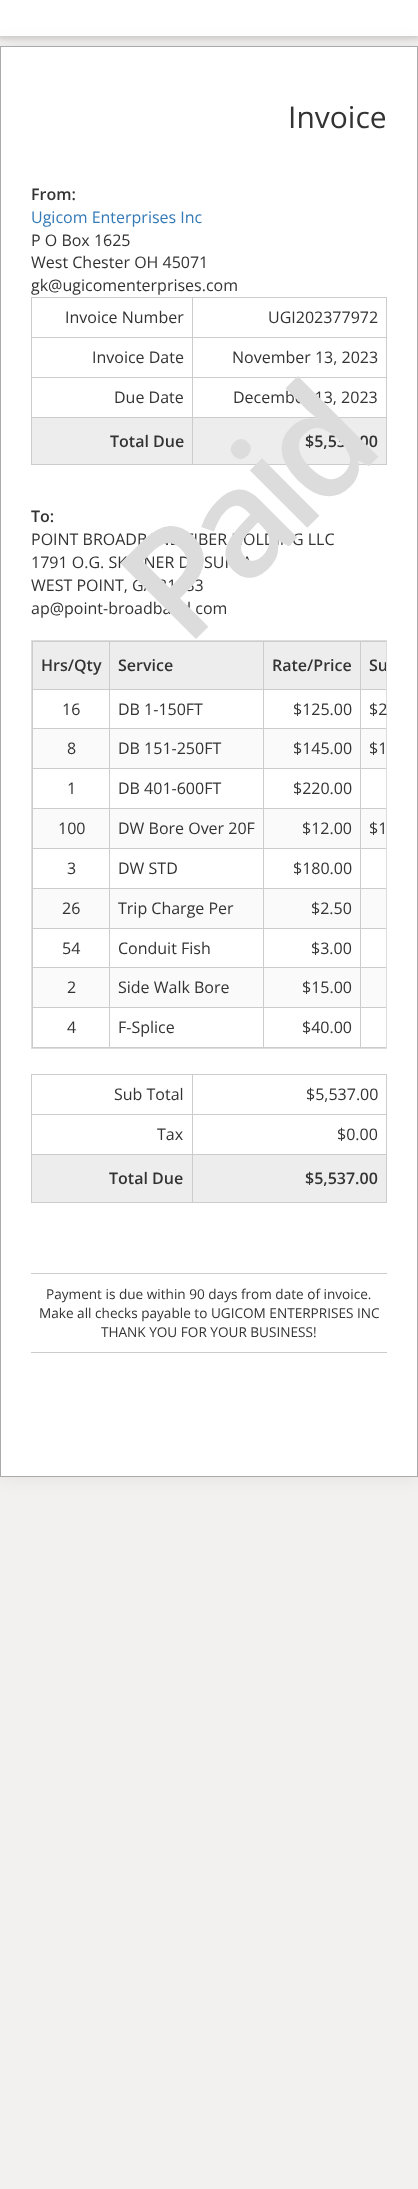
<?xml version="1.0" encoding="UTF-8"?>
<svg xmlns="http://www.w3.org/2000/svg" xmlns:xlink="http://www.w3.org/1999/xlink" width="418" height="2189">
  <defs>
    <clipPath id="clip1"><rect x="32" y="641" width="354" height="407" /></clipPath>
  </defs>
  <rect width="100%" height="100%" fill="#f2f1ef" />
  <rect x="-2" y="-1" width="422" height="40" fill="#000000" fill-opacity="0.15" filter="blur(2.5px)" />
  <rect width="418" height="36" fill="#ffffff" />
  <rect y="46" width="418" height="1431" fill="#000000" fill-opacity="0.07" filter="blur(10px)" />
  <rect x="0.5" y="46.5" width="417" height="1430" fill="#ffffff" stroke="#aaaaaa" />
  <rect x="31" y="297" width="356" height="1" fill="#cccccc" />
  <rect x="386" y="297" width="1" height="168" fill="#cccccc" />
  <rect x="31" y="464" width="356" height="1" fill="#cccccc" />
  <rect x="31" y="297" width="1" height="168" fill="#cccccc" />
  <rect x="192" y="337" width="195" height="1" fill="#cccccc" />
  <rect x="192" y="377" width="195" height="1" fill="#cccccc" />
  <rect x="192" y="417" width="195" height="1" fill="#cccccc" />
  <rect x="192" y="417" width="1" height="48" fill="#cccccc" />
  <rect x="31" y="417" width="162" height="1" fill="#cccccc" />
  <rect x="192" y="377" width="1" height="41" fill="#cccccc" />
  <rect x="31" y="377" width="162" height="1" fill="#cccccc" />
  <rect x="192" y="337" width="1" height="41" fill="#cccccc" />
  <rect x="31" y="337" width="162" height="1" fill="#cccccc" />
  <rect x="192" y="297" width="1" height="41" fill="#cccccc" />
  <rect x="32" y="418" width="160" height="46" fill="#ededed" />
  <rect x="193" y="418" width="193" height="46" fill="#ededed" />
  <rect x="31.5" y="640.5" width="355" height="408" fill="none" stroke="#dddddd" />
  <rect x="32" y="641" width="354" height="1" fill="#cccccc" />
  <rect x="32" y="1047" width="354" height="1" fill="#cccccc" />
  <rect x="32" y="641" width="1" height="407" fill="#cccccc" />
  <rect x="33" y="642" width="76" height="47" fill="#ededed" />
  <rect x="110" y="642" width="153" height="47" fill="#ededed" />
  <rect x="360" y="689" width="26" height="1" fill="#cccccc" />
  <rect x="360" y="728" width="26" height="1" fill="#cccccc" />
  <rect x="33" y="729" width="353" height="39" fill="#fafafa" />
  <rect x="360" y="768" width="26" height="1" fill="#cccccc" />
  <rect x="360" y="808" width="26" height="1" fill="#cccccc" />
  <rect x="33" y="809" width="353" height="39" fill="#fafafa" />
  <rect x="360" y="848" width="26" height="1" fill="#cccccc" />
  <rect x="360" y="888" width="26" height="1" fill="#cccccc" />
  <rect x="33" y="889" width="353" height="39" fill="#fafafa" />
  <rect x="360" y="928" width="26" height="1" fill="#cccccc" />
  <rect x="360" y="967" width="26" height="1" fill="#cccccc" />
  <rect x="33" y="968" width="353" height="39" fill="#fafafa" />
  <rect x="360" y="1007" width="26" height="1" fill="#cccccc" />
  <rect x="360" y="1007" width="1" height="41" fill="#cccccc" />
  <rect x="263" y="1007" width="98" height="1" fill="#cccccc" />
  <rect x="360" y="967" width="1" height="41" fill="#cccccc" />
  <rect x="263" y="967" width="98" height="1" fill="#cccccc" />
  <rect x="360" y="928" width="1" height="40" fill="#cccccc" />
  <rect x="263" y="928" width="98" height="1" fill="#cccccc" />
  <rect x="360" y="888" width="1" height="41" fill="#cccccc" />
  <rect x="263" y="888" width="98" height="1" fill="#cccccc" />
  <rect x="360" y="848" width="1" height="41" fill="#cccccc" />
  <rect x="263" y="848" width="98" height="1" fill="#cccccc" />
  <rect x="360" y="808" width="1" height="41" fill="#cccccc" />
  <rect x="263" y="808" width="98" height="1" fill="#cccccc" />
  <rect x="360" y="768" width="1" height="41" fill="#cccccc" />
  <rect x="263" y="768" width="98" height="1" fill="#cccccc" />
  <rect x="360" y="728" width="1" height="41" fill="#cccccc" />
  <rect x="263" y="728" width="98" height="1" fill="#cccccc" />
  <rect x="360" y="689" width="1" height="40" fill="#cccccc" />
  <rect x="263" y="689" width="98" height="1" fill="#cccccc" />
  <rect x="263" y="1007" width="1" height="41" fill="#cccccc" />
  <rect x="109" y="1007" width="155" height="1" fill="#cccccc" />
  <rect x="263" y="967" width="1" height="41" fill="#cccccc" />
  <rect x="109" y="967" width="155" height="1" fill="#cccccc" />
  <rect x="263" y="928" width="1" height="40" fill="#cccccc" />
  <rect x="109" y="928" width="155" height="1" fill="#cccccc" />
  <rect x="263" y="888" width="1" height="41" fill="#cccccc" />
  <rect x="109" y="888" width="155" height="1" fill="#cccccc" />
  <rect x="263" y="848" width="1" height="41" fill="#cccccc" />
  <rect x="109" y="848" width="155" height="1" fill="#cccccc" />
  <rect x="263" y="808" width="1" height="41" fill="#cccccc" />
  <rect x="109" y="808" width="155" height="1" fill="#cccccc" />
  <rect x="263" y="768" width="1" height="41" fill="#cccccc" />
  <rect x="109" y="768" width="155" height="1" fill="#cccccc" />
  <rect x="263" y="728" width="1" height="41" fill="#cccccc" />
  <rect x="109" y="728" width="155" height="1" fill="#cccccc" />
  <rect x="263" y="689" width="1" height="40" fill="#cccccc" />
  <rect x="109" y="689" width="155" height="1" fill="#cccccc" />
  <rect x="109" y="1007" width="1" height="41" fill="#cccccc" />
  <rect x="32" y="1007" width="78" height="1" fill="#cccccc" />
  <rect x="109" y="967" width="1" height="41" fill="#cccccc" />
  <rect x="32" y="967" width="78" height="1" fill="#cccccc" />
  <rect x="109" y="928" width="1" height="40" fill="#cccccc" />
  <rect x="32" y="928" width="78" height="1" fill="#cccccc" />
  <rect x="109" y="888" width="1" height="41" fill="#cccccc" />
  <rect x="32" y="888" width="78" height="1" fill="#cccccc" />
  <rect x="109" y="848" width="1" height="41" fill="#cccccc" />
  <rect x="32" y="848" width="78" height="1" fill="#cccccc" />
  <rect x="109" y="808" width="1" height="41" fill="#cccccc" />
  <rect x="32" y="808" width="78" height="1" fill="#cccccc" />
  <rect x="109" y="768" width="1" height="41" fill="#cccccc" />
  <rect x="32" y="768" width="78" height="1" fill="#cccccc" />
  <rect x="109" y="728" width="1" height="41" fill="#cccccc" />
  <rect x="32" y="728" width="78" height="1" fill="#cccccc" />
  <rect x="109" y="689" width="1" height="40" fill="#cccccc" />
  <rect x="32" y="689" width="78" height="1" fill="#cccccc" />
  <rect x="109" y="641" width="1" height="49" fill="#cccccc" />
  <rect x="264" y="642" width="96" height="47" fill="#ededed" />
  <rect x="263" y="641" width="1" height="49" fill="#cccccc" />
  <rect x="361" y="642" width="25" height="47" fill="#ededed" />
  <rect x="360" y="641" width="1" height="49" fill="#cccccc" />
  <rect x="31" y="1074" width="356" height="1" fill="#cccccc" />
  <rect x="386" y="1074" width="1" height="129" fill="#cccccc" />
  <rect x="31" y="1202" width="356" height="1" fill="#cccccc" />
  <rect x="31" y="1074" width="1" height="129" fill="#cccccc" />
  <rect x="192" y="1114" width="195" height="1" fill="#cccccc" />
  <rect x="192" y="1154" width="195" height="1" fill="#cccccc" />
  <rect x="192" y="1154" width="1" height="49" fill="#cccccc" />
  <rect x="31" y="1154" width="162" height="1" fill="#cccccc" />
  <rect x="192" y="1114" width="1" height="41" fill="#cccccc" />
  <rect x="31" y="1114" width="162" height="1" fill="#cccccc" />
  <rect x="192" y="1074" width="1" height="41" fill="#cccccc" />
  <rect x="32" y="1155" width="160" height="47" fill="#ededed" />
  <rect x="193" y="1155" width="193" height="47" fill="#ededed" />
  <rect x="31" y="1273" width="356" height="1" fill="#cccccc" />
  <rect x="31" y="1352" width="356" height="1" fill="#cccccc" />
  <text x="288" y="128" style="font-family: Open Sans; font-size: 30px; fill: #333333">Invoice</text>
  <text x="31" y="200" style="font-family: Open Sans; font-size: 16px; font-weight: 600; fill: #333333">From:</text>
  <text x="31" y="223" style="font-family: Open Sans; font-size: 16px; fill: #337ab7">Ugicom Enterprises Inc</text>
  <text x="31" y="246" style="font-family: Open Sans; font-size: 16px; fill: #333333">P O Box 1625</text>
  <text x="31" y="268" style="font-family: Open Sans; font-size: 16px; fill: #333333">West Chester OH 45071</text>
  <text x="31" y="291" style="font-family: Open Sans; font-size: 16px; fill: #333333">gk@ugicomenterprises.com</text>
  <text x="65" y="323" style="font-family: Open Sans; font-size: 16px; fill: #333333">Invoice Number</text>
  <text x="268" y="323" style="font-family: Open Sans; font-size: 16px; fill: #333333">UGI202377972</text>
  <text x="92" y="363" style="font-family: Open Sans; font-size: 16px; fill: #333333">Invoice Date</text>
  <text x="232" y="363" style="font-family: Open Sans; font-size: 16px; fill: #333333">November 13, 2023</text>
  <text x="114" y="403" style="font-family: Open Sans; font-size: 16px; fill: #333333">Due Date</text>
  <text x="233" y="403" style="font-family: Open Sans; font-size: 16px; fill: #333333">December 13, 2023</text>
  <text x="110" y="447" style="font-family: Open Sans; font-size: 16px; font-weight: 600; fill: #333333">Total Due</text>
  <text x="305" y="447" style="font-family: Open Sans; font-size: 16px; font-weight: 600; fill: #333333">$5,537.00</text>
  <text x="31" y="522" style="font-family: Open Sans; font-size: 16px; font-weight: 600; fill: #333333">To:</text>
  <text x="31" y="545" style="font-family: Open Sans; font-size: 16px; fill: #333333">POINT BROADBAND FIBER HOLDING LLC</text>
  <text x="31" y="568" style="font-family: Open Sans; font-size: 16px; fill: #333333">1791 O.G. SKINNER DR SUIT A</text>
  <text x="31" y="591" style="font-family: Open Sans; font-size: 16px; fill: #333333">WEST POINT, GA 31833</text>
  <text x="31" y="614" style="font-family: Open Sans; font-size: 16px; fill: #333333">ap@point-broadband.com</text>
  <text x="186" y="649" transform="rotate(-45 186 649)" style="font-family: Open Sans; font-size: 150px; font-weight: 600; letter-spacing: -10px; fill: #dcdcdc">Paid</text>
  <text x="41" y="671" style="font-family: Open Sans; font-size: 16px; font-weight: 600; fill: #333333">Hrs/Qty</text>
  <text x="118" y="671" style="font-family: Open Sans; font-size: 16px; font-weight: 600; fill: #333333">Service</text>
  <text x="272" y="671" style="font-family: Open Sans; font-size: 16px; font-weight: 600; fill: #333333">Rate/Price</text>
  <g clip-path="url(#clip1)">
    <text x="369" y="671" style="font-family: Open Sans; font-size: 16px; font-weight: 600; fill: #333333">Su</text>
  </g>
  <text x="62" y="715" style="font-family: Open Sans; font-size: 16px; fill: #333333">16</text>
  <text x="118" y="715" style="font-family: Open Sans; font-size: 16px; fill: #333333">DB 1-150FT</text>
  <text x="293" y="715" style="font-family: Open Sans; font-size: 16px; fill: #333333">$125.00</text>
  <text x="369" y="715" style="font-family: Open Sans; font-size: 16px; fill: #333333">$2</text>
  <text x="67" y="754" style="font-family: Open Sans; font-size: 16px; fill: #333333">8</text>
  <text x="118" y="754" style="font-family: Open Sans; font-size: 16px; fill: #333333">DB 151-250FT</text>
  <text x="293" y="754" style="font-family: Open Sans; font-size: 16px; fill: #333333">$145.00</text>
  <text x="369" y="754" style="font-family: Open Sans; font-size: 16px; fill: #333333">$1</text>
  <text x="67" y="794" style="font-family: Open Sans; font-size: 16px; fill: #333333">1</text>
  <text x="118" y="794" style="font-family: Open Sans; font-size: 16px; fill: #333333">DB 401-600FT</text>
  <text x="293" y="794" style="font-family: Open Sans; font-size: 16px; fill: #333333">$220.00</text>
  <text x="58" y="834" style="font-family: Open Sans; font-size: 16px; fill: #333333">100</text>
  <text x="118" y="834" style="font-family: Open Sans; font-size: 16px; fill: #333333">DW Bore Over 20F</text>
  <text x="302" y="834" style="font-family: Open Sans; font-size: 16px; fill: #333333">$12.00</text>
  <text x="369" y="834" style="font-family: Open Sans; font-size: 16px; fill: #333333">$1</text>
  <text x="67" y="874" style="font-family: Open Sans; font-size: 16px; fill: #333333">3</text>
  <text x="118" y="874" style="font-family: Open Sans; font-size: 16px; fill: #333333">DW STD</text>
  <text x="293" y="874" style="font-family: Open Sans; font-size: 16px; fill: #333333">$180.00</text>
  <text x="62" y="914" style="font-family: Open Sans; font-size: 16px; fill: #333333">26</text>
  <text x="118" y="914" style="font-family: Open Sans; font-size: 16px; fill: #333333">Trip Charge Per</text>
  <text x="311" y="914" style="font-family: Open Sans; font-size: 16px; fill: #333333">$2.50</text>
  <text x="62" y="954" style="font-family: Open Sans; font-size: 16px; fill: #333333">54</text>
  <text x="118" y="954" style="font-family: Open Sans; font-size: 16px; fill: #333333">Conduit Fish</text>
  <text x="311" y="954" style="font-family: Open Sans; font-size: 16px; fill: #333333">$3.00</text>
  <text x="67" y="993" style="font-family: Open Sans; font-size: 16px; fill: #333333">2</text>
  <text x="118" y="993" style="font-family: Open Sans; font-size: 16px; fill: #333333">Side Walk Bore</text>
  <text x="302" y="993" style="font-family: Open Sans; font-size: 16px; fill: #333333">$15.00</text>
  <text x="67" y="1033" style="font-family: Open Sans; font-size: 16px; fill: #333333">4</text>
  <text x="118" y="1033" style="font-family: Open Sans; font-size: 16px; fill: #333333">F-Splice</text>
  <text x="302" y="1033" style="font-family: Open Sans; font-size: 16px; fill: #333333">$40.00</text>
  <text x="114" y="1100" style="font-family: Open Sans; font-size: 16px; fill: #333333">Sub Total</text>
  <text x="306" y="1100" style="font-family: Open Sans; font-size: 16px; fill: #333333">$5,537.00</text>
  <text x="157" y="1140" style="font-family: Open Sans; font-size: 16px; fill: #333333">Tax</text>
  <text x="337" y="1140" style="font-family: Open Sans; font-size: 16px; fill: #333333">$0.00</text>
  <text x="109" y="1184" style="font-family: Open Sans; font-size: 16px; font-weight: 600; fill: #333333">Total Due</text>
  <text x="305" y="1184" style="font-family: Open Sans; font-size: 16px; font-weight: 600; fill: #333333">$5,537.00</text>
  <text x="46" y="1299" style="font-family: Open Sans; font-size: 13.6px; fill: #333333">Payment is due within 90 days from date of invoice.</text>
  <text x="39" y="1318" style="font-family: Open Sans; font-size: 13.6px; fill: #333333">Make all checks payable to UGICOM ENTERPRISES INC</text>
  <text x="101" y="1337" style="font-family: Open Sans; font-size: 13.6px; fill: #333333">THANK YOU FOR YOUR BUSINESS!</text>
</svg>
